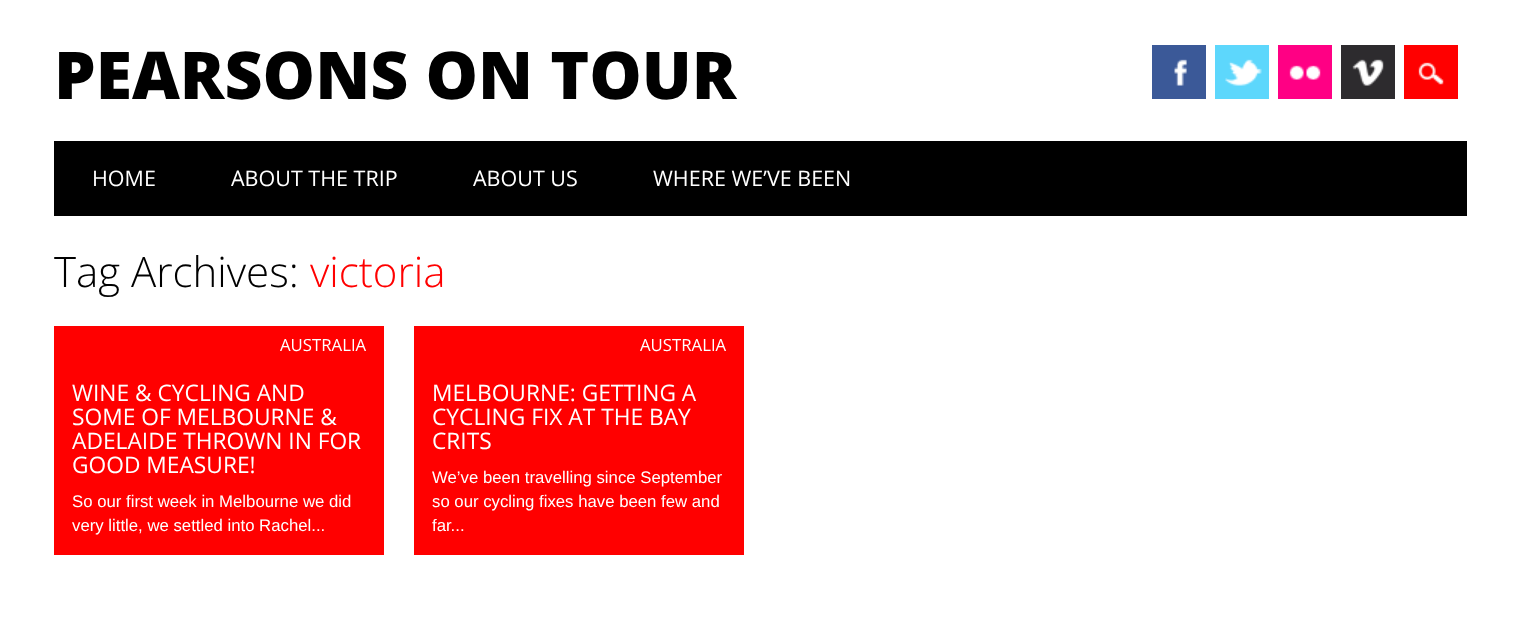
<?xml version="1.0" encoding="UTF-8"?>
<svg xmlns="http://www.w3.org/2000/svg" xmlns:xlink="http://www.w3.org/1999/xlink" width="1520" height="623">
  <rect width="100%" height="100%" fill="#ffffff" />
  <rect x="1152" y="45" width="54" height="54" fill="#3b5998" />
  <image x="1174" y="59" width="13" height="27" xlink:href="image1.png" />
  <rect x="1215" y="45" width="54" height="54" fill="#5dd7fc" />
  <image x="1225" y="59" width="37" height="27" xlink:href="image2.png" />
  <rect x="1278" y="45" width="54" height="54" fill="#ff0084" />
  <image x="1289" y="65" width="32" height="15" xlink:href="image3.png" />
  <rect x="1341" y="45" width="54" height="54" fill="#2d2b2e" />
  <image x="1352" y="59" width="32" height="27" xlink:href="image4.png" />
  <rect x="1404" y="45" width="54" height="54" fill="#ff0000" />
  <image x="1418" y="62" width="26" height="23" xlink:href="image5.png" />
  <rect x="54" y="141" width="1413" height="75" fill="#000000" />
  <rect x="54" y="326" width="330" height="229" fill="#ff0000" />
  <rect x="414" y="326" width="330" height="229" fill="#ff0000" />
  <text x="54" y="99" style="font-family: Open Sans; font-size: 66px; font-weight: 800; fill: #000000">PEARSONS ON TOUR</text>
  <text x="92" y="186" style="font-family: Open Sans; font-size: 21.5px; fill: #ffffff">HOME</text>
  <text x="231" y="186" style="font-family: Open Sans; font-size: 21.5px; fill: #ffffff">ABOUT THE TRIP</text>
  <text x="473" y="186" style="font-family: Open Sans; font-size: 21.5px; fill: #ffffff">ABOUT US</text>
  <text x="653" y="186" style="font-family: Open Sans; font-size: 21.5px; fill: #ffffff">WHERE WE’VE BEEN</text>
  <text x="54" y="287" style="font-family: Open Sans; font-size: 42px; font-weight: 300; fill: #000000">Tag Archives:</text>
  <text x="310" y="287" style="font-family: Open Sans; font-size: 42px; font-weight: 300; fill: #ff0000">victoria</text>
  <text x="280" y="351" style="font-family: Open Sans; font-size: 16.75px; fill: #ffffff">AUSTRALIA</text>
  <text x="72" y="401" style="font-family: Open Sans; font-size: 22.75px; fill: #ffffff">WINE &amp; CYCLING AND</text>
  <text x="72" y="425" style="font-family: Open Sans; font-size: 22.75px; fill: #ffffff">SOME OF MELBOURNE &amp;</text>
  <text x="72" y="449" style="font-family: Open Sans; font-size: 22.75px; fill: #ffffff">ADELAIDE THROWN IN FOR</text>
  <text x="72" y="473" style="font-family: Open Sans; font-size: 22.75px; fill: #ffffff">GOOD MEASURE!</text>
  <text x="72" y="507" style="font-family: Liberation Sans; font-size: 16.75px; fill: #ffffff">So our first week in Melbourne we did</text>
  <text x="72" y="531" style="font-family: Liberation Sans; font-size: 16.75px; fill: #ffffff">very little, we settled into Rachel...</text>
  <text x="640" y="351" style="font-family: Open Sans; font-size: 16.75px; fill: #ffffff">AUSTRALIA</text>
  <text x="432" y="401" style="font-family: Open Sans; font-size: 22.75px; fill: #ffffff">MELBOURNE: GETTING A</text>
  <text x="432" y="425" style="font-family: Open Sans; font-size: 22.75px; fill: #ffffff">CYCLING FIX AT THE BAY</text>
  <text x="432" y="449" style="font-family: Open Sans; font-size: 22.75px; fill: #ffffff">CRITS</text>
  <text x="432" y="483" style="font-family: Liberation Sans; font-size: 16.75px; fill: #ffffff">We’ve been travelling since September</text>
  <text x="432" y="507" style="font-family: Liberation Sans; font-size: 16.75px; fill: #ffffff">so our cycling fixes have been few and</text>
  <text x="432" y="531" style="font-family: Liberation Sans; font-size: 16.75px; fill: #ffffff">far...</text>
</svg>
